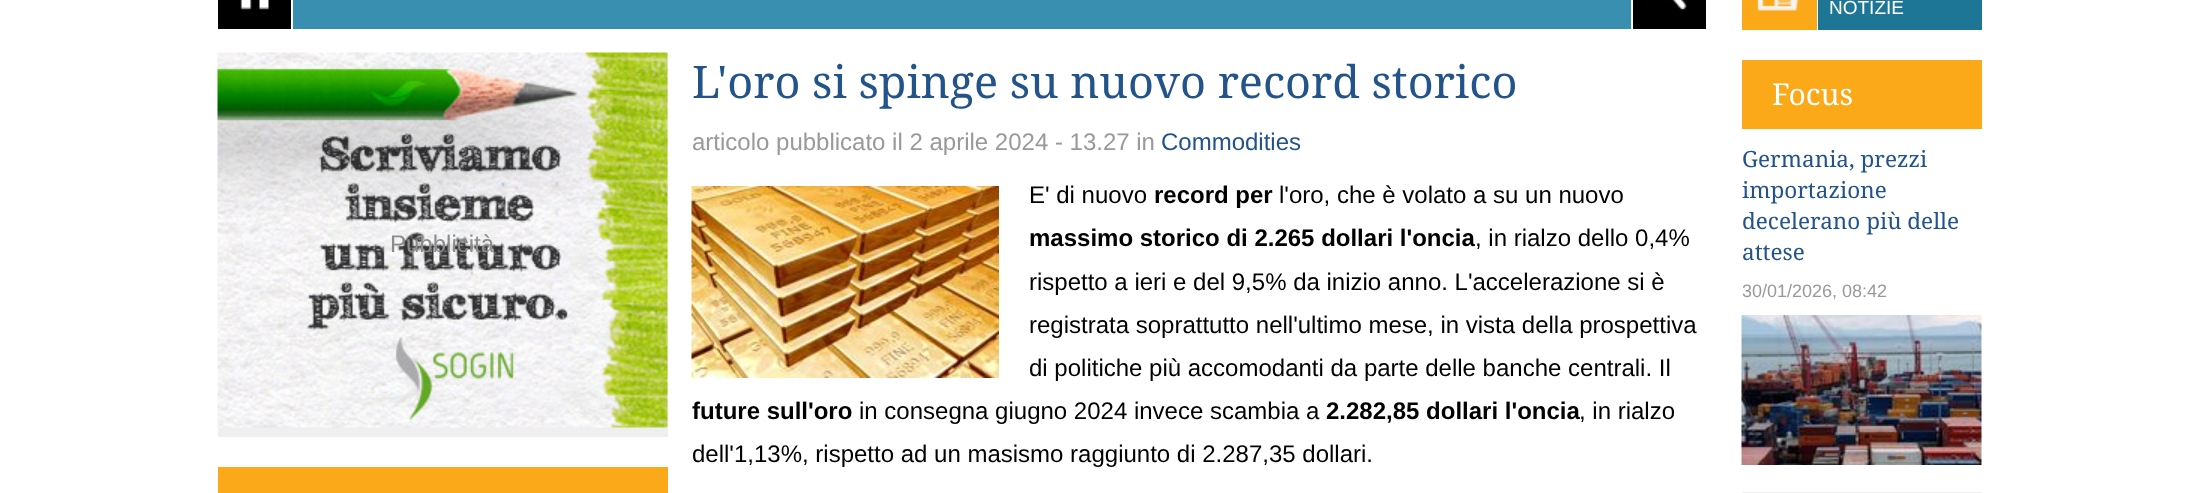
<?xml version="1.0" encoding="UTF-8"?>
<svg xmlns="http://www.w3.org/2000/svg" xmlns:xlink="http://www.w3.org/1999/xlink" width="2204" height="493">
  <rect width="100%" height="100%" fill="#ffffff" />
  <rect x="293" width="1338" height="29" fill="#398faf" />
  <rect x="218" width="73" height="29" fill="#000000" />
  <image x="240" y="0" width="29" height="10" xlink:href="image1.png" />
  <rect x="1633" width="73" height="29" fill="#000000" />
  <image x="1666" y="0" width="21" height="10" xlink:href="image2.png" />
  <rect x="218" y="53" width="450" height="384" fill="#efefef" />
  <image x="217" y="52" width="451" height="376" xlink:href="image3.png" />
  <rect x="218" y="467" width="450" height="26" fill="#fba919" />
  <image x="691" y="186" width="308" height="192" xlink:href="image4.png" />
  <rect x="1742" width="75" height="30" fill="#fba919" />
  <image x="1757" y="0" width="42" height="11" xlink:href="image5.png" />
  <rect x="1818" width="164" height="30" fill="#1d7696" />
  <rect x="1742" y="60" width="240" height="69" fill="#fba919" />
  <rect x="1742" y="492" width="240" height="1" fill="#eeeeee" />
  <image x="1741" y="315" width="241" height="150" xlink:href="image6.png" />
  <text x="390" y="252" style="font-family: Liberation Sans; font-size: 24px; fill: #8c8c8c">Pubblicità</text>
  <text x="692" y="98" style="font-family: Droid Serif; font-size: 45px; fill: #22548b">L'oro si spinge su nuovo record storico</text>
  <text x="692" y="150" style="font-family: Liberation Sans; font-size: 24px; fill: #999999">articolo pubblicato il 2 aprile 2024 - 13.27 in</text>
  <text x="1161" y="150" style="font-family: Liberation Sans; font-size: 24px; fill: #22548b">Commodities</text>
  <text x="1029" y="203" style="font-family: Liberation Sans; font-size: 24px; fill: #000000">E' di nuovo</text>
  <text x="1154" y="203" style="font-family: Liberation Sans; font-size: 24px; font-weight: bold; fill: #000000">record per</text>
  <text x="1279" y="203" style="font-family: Liberation Sans; font-size: 24px; fill: #000000">l'oro, che è volato a su un nuovo</text>
  <text x="1029" y="246" style="font-family: Liberation Sans; font-size: 24px; font-weight: bold; fill: #000000">massimo storico di 2.265 dollari l'oncia</text>
  <text x="1475" y="246" style="font-family: Liberation Sans; font-size: 24px; fill: #000000">, in rialzo dello 0,4%</text>
  <text x="1029" y="290" style="font-family: Liberation Sans; font-size: 24px; fill: #000000">rispetto a ieri e del 9,5% da inizio anno. L'accelerazione si è</text>
  <text x="1029" y="333" style="font-family: Liberation Sans; font-size: 24px; fill: #000000">registrata soprattutto nell'ultimo mese, in vista della prospettiva</text>
  <text x="1029" y="376" style="font-family: Liberation Sans; font-size: 24px; fill: #000000">di politiche più accomodanti da parte delle banche centrali. Il</text>
  <text x="692" y="419" style="font-family: Liberation Sans; font-size: 24px; font-weight: bold; fill: #000000">future sull'oro</text>
  <text x="859" y="419" style="font-family: Liberation Sans; font-size: 24px; fill: #000000">in consegna giugno 2024 invece scambia a</text>
  <text x="1326" y="419" style="font-family: Liberation Sans; font-size: 24px; font-weight: bold; fill: #000000">2.282,85 dollari l'oncia</text>
  <text x="1579" y="419" style="font-family: Liberation Sans; font-size: 24px; fill: #000000">, in rialzo</text>
  <text x="692" y="462" style="font-family: Liberation Sans; font-size: 24px; fill: #000000">dell'1,13%, rispetto ad un masismo raggiunto di 2.287,35 dollari.</text>
  <text x="1829" y="14" style="font-family: Liberation Sans; font-size: 19px; fill: #ffffff">NOTIZIE</text>
  <text x="1772" y="105" style="font-family: Droid Serif; font-size: 30px; fill: #ffffff">Focus</text>
  <text x="1742" y="167" style="font-family: Droid Serif; font-size: 22.5px; fill: #22548b">Germania, prezzi</text>
  <text x="1742" y="198" style="font-family: Droid Serif; font-size: 22.5px; fill: #22548b">importazione</text>
  <text x="1742" y="229" style="font-family: Droid Serif; font-size: 22.5px; fill: #22548b">decelerano più delle</text>
  <text x="1742" y="260" style="font-family: Droid Serif; font-size: 22.5px; fill: #22548b">attese</text>
  <text x="1742" y="297" style="font-family: Liberation Sans; font-size: 18px; fill: #999999">30/01/2026, 08:42</text>
</svg>
